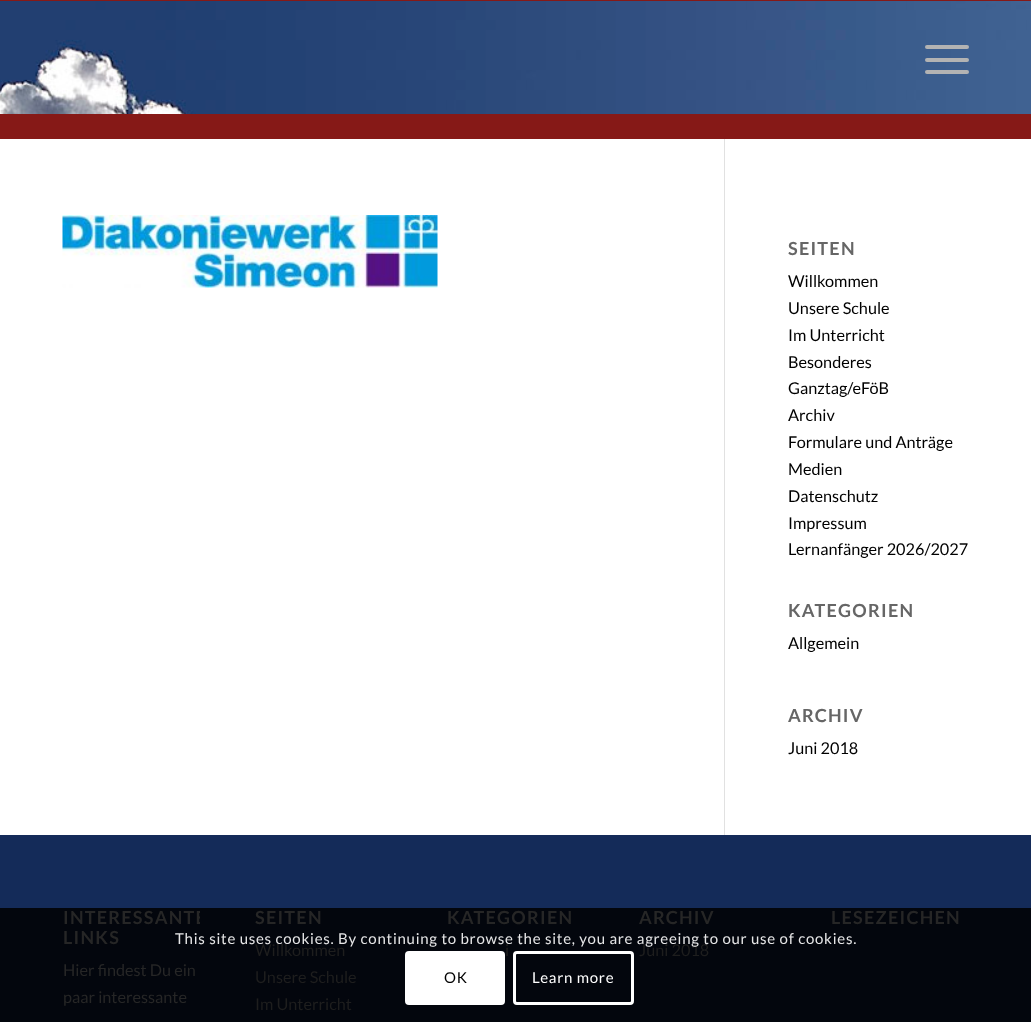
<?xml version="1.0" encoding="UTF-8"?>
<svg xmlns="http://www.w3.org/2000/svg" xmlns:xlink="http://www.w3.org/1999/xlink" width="1031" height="1022">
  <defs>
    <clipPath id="clip1"><rect x="63" y="893" width="137" height="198" /></clipPath>
  </defs>
  <rect width="100%" height="100%" fill="#ffffff" />
  <rect width="1031" height="1" fill="#861917" />
  <rect y="114" width="1031" height="25" fill="#861917" />
  <image x="0" y="1" width="1031" height="113" xlink:href="image1.png" />
  <rect x="925" y="58" width="44" height="4" rx="2" fill="#b3b3b3" />
  <rect x="925" y="45" width="44" height="4" rx="2" fill="#b3b3b3" />
  <rect x="925" y="70" width="44" height="4" rx="2" fill="#b3b3b3" />
  <image x="62" y="215" width="376" height="73" xlink:href="image2.png" />
  <rect x="724" y="139" width="1" height="696" fill="#e1e1e1" />
  <rect y="835" width="1031" height="73" fill="#142b59" />
  <rect y="908" width="1031" height="114" fill="#03060d" />
  <rect x="405" y="951" width="100" height="54" rx="4" fill="#ffffff" />
  <rect x="514.5" y="952.5" width="118" height="51" rx="2.5" fill="none" stroke="#ffffff" stroke-width="3" />
  <text x="788" y="255" style="font-family: Lato; font-size: 18px; font-weight: bold; letter-spacing: 1.25px; fill: #666666">SEITEN</text>
  <text x="788" y="287" style="font-family: Lato; font-size: 16.25px; fill: #000000">Willkommen</text>
  <text x="788" y="314" style="font-family: Lato; font-size: 16.25px; fill: #000000">Unsere Schule</text>
  <text x="788" y="341" style="font-family: Lato; font-size: 16.25px; fill: #000000">Im Unterricht</text>
  <text x="788" y="368" style="font-family: Lato; font-size: 16.25px; fill: #000000">Besonderes</text>
  <text x="788" y="394" style="font-family: Lato; font-size: 16.25px; fill: #000000">Ganztag/eFöB</text>
  <text x="788" y="421" style="font-family: Lato; font-size: 16.25px; fill: #000000">Archiv</text>
  <text x="788" y="448" style="font-family: Lato; font-size: 16.25px; fill: #000000">Formulare und Anträge</text>
  <text x="788" y="475" style="font-family: Lato; font-size: 16.25px; fill: #000000">Medien</text>
  <text x="788" y="502" style="font-family: Lato; font-size: 16.25px; fill: #000000">Datenschutz</text>
  <text x="788" y="529" style="font-family: Lato; font-size: 16.25px; fill: #000000">Impressum</text>
  <text x="788" y="555" style="font-family: Lato; font-size: 16.25px; fill: #000000">Lernanfänger 2026/2027</text>
  <text x="788" y="617" style="font-family: Lato; font-size: 18px; font-weight: bold; letter-spacing: 1.25px; fill: #666666">KATEGORIEN</text>
  <text x="788" y="649" style="font-family: Lato; font-size: 16.25px; fill: #000000">Allgemein</text>
  <text x="788" y="722" style="font-family: Lato; font-size: 18px; font-weight: bold; letter-spacing: 1.25px; fill: #666666">ARCHIV</text>
  <text x="788" y="754" style="font-family: Lato; font-size: 16.25px; fill: #000000">Juni 2018</text>
  <g clip-path="url(#clip1)">
    <text x="63" y="924" style="font-family: Lato; font-size: 18px; font-weight: bold; letter-spacing: 1.25px; fill: #262626">INTERESSANTE</text>
  </g>
  <text x="63" y="944" style="font-family: Lato; font-size: 18px; font-weight: bold; letter-spacing: 1.25px; fill: #262626">LINKS</text>
  <text x="63" y="976" style="font-family: Lato; font-size: 16.25px; fill: #262626">Hier findest Du ein</text>
  <text x="63" y="1003" style="font-family: Lato; font-size: 16.25px; fill: #262626">paar interessante</text>
  <text x="255" y="924" style="font-family: Lato; font-size: 18px; font-weight: bold; letter-spacing: 1.25px; fill: #262626">SEITEN</text>
  <text x="255" y="956" style="font-family: Lato; font-size: 16.25px; fill: #1e1e1e">Willkommen</text>
  <text x="255" y="983" style="font-family: Lato; font-size: 16.25px; fill: #1e1e1e">Unsere Schule</text>
  <text x="255" y="1010" style="font-family: Lato; font-size: 16.25px; fill: #1e1e1e">Im Unterricht</text>
  <text x="447" y="924" style="font-family: Lato; font-size: 18px; font-weight: bold; letter-spacing: 1.25px; fill: #262626">KATEGORIEN</text>
  <text x="505" y="956" style="font-family: Lato; font-size: 16.25px; fill: #1e1e1e">i</text>
  <text x="639" y="924" style="font-family: Lato; font-size: 18px; font-weight: bold; letter-spacing: 1.25px; fill: #262626">ARCHIV</text>
  <text x="639" y="956" style="font-family: Lato; font-size: 16.25px; fill: #1e1e1e">Juni 2018</text>
  <text x="831" y="924" style="font-family: Lato; font-size: 18px; font-weight: bold; letter-spacing: 1.25px; fill: #262626">LESEZEICHEN</text>
  <text x="175" y="944" style="font-family: Lato; font-size: 15px; letter-spacing: 0.75px; fill: #e6e6e7">This site uses cookies. By continuing to browse the site, you are agreeing to our use of cookies.</text>
  <text x="444" y="983" style="font-family: Lato; font-size: 15px; letter-spacing: 0.75px; fill: #000000">OK</text>
  <text x="532" y="983" style="font-family: Lato; font-size: 15px; letter-spacing: 0.75px; fill: #ffffff">Learn more</text>
</svg>
